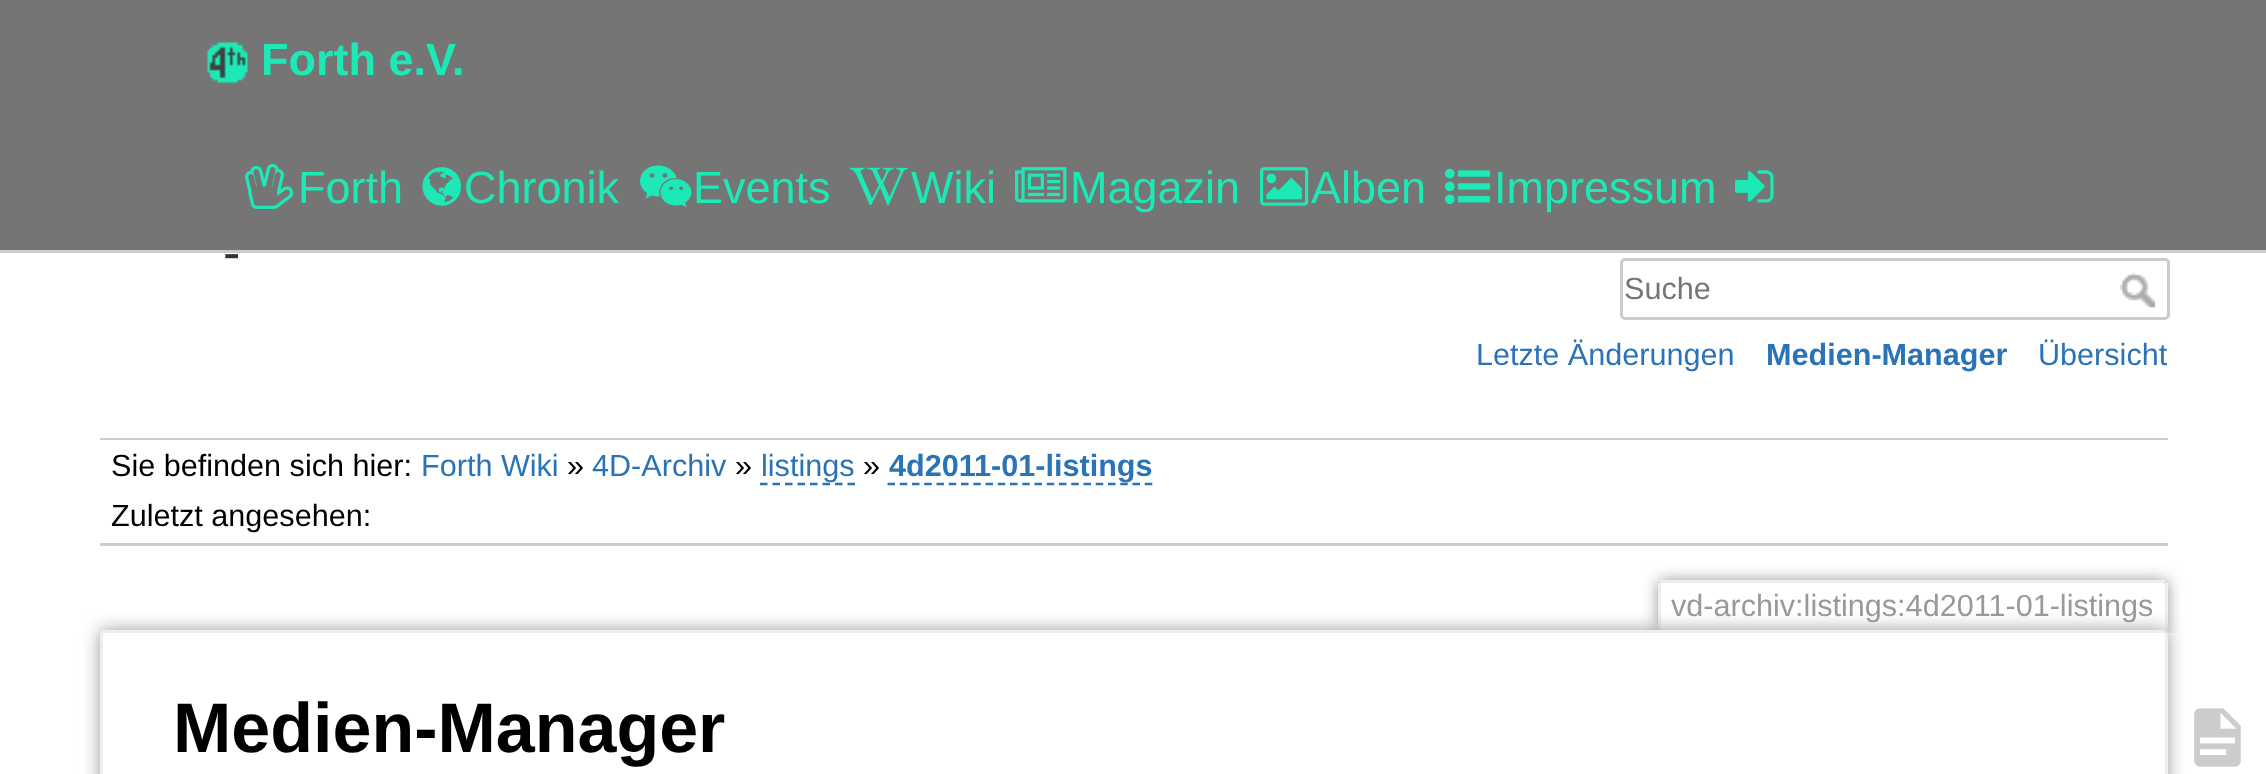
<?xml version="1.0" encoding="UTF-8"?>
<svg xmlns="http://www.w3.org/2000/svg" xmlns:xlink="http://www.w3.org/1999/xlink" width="2266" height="774">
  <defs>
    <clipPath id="clip1"><rect x="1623" y="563" width="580" height="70" /></clipPath>
  </defs>
  <rect width="100%" height="100%" fill="#ffffff" />
  <rect width="2266" height="250" fill="#757575" />
  <rect y="250" width="2266" height="3" fill="#cccccc" />
  <image x="206" y="42" width="42" height="42" xlink:href="image1.png" />
  <image x="245" y="163" width="49" height="46" xlink:href="image2.png" />
  <image x="422" y="167" width="40" height="39" xlink:href="image3.png" />
  <image x="640" y="165" width="52" height="43" xlink:href="image4.png" />
  <image x="850" y="167" width="58" height="39" xlink:href="image5.png" />
  <image x="1015" y="167" width="52" height="36" xlink:href="image6.png" />
  <image x="1260" y="167" width="49" height="39" xlink:href="image7.png" />
  <image x="1445" y="168" width="45" height="37" xlink:href="image8.png" />
  <image x="1735" y="170" width="39" height="33" xlink:href="image9.png" />
  <rect x="1621.5" y="259.5" width="547" height="59" rx="3.5" fill="none" stroke="#cccccc" stroke-width="3" />
  <image x="2120" y="272" width="35" height="36" xlink:href="image10.png" />
  <rect x="100" y="438" width="2068" height="2" fill="#cccccc" />
  <path d="M 760 484 h 95" fill="none" stroke="#2b73b7" stroke-width="2.5" stroke-dasharray="7.5 5" />
  <path d="M 887.5 484 h 265" fill="none" stroke="#2b73b7" stroke-width="2.5" stroke-dasharray="7.5 4.75" />
  <rect x="100" y="543" width="2068" height="3" fill="#cccccc" />
  <g clip-path="url(#clip1)">
    <rect x="1658" y="580" width="510" height="53" rx="5" fill="#999999" filter="blur(7.5px)" />
  </g>
  <path d="M 1662.5 583 h 500 c 1.5 0 2.5 1 2.5 2.5 v 47.5 h -505 v -47.5 c 0 -1.5 1 -2.5 2.5 -2.5 z" fill="#ffffff" />
  <rect x="1660" y="580" width="505" height="3" fill="#eeeeee" />
  <rect x="2165" y="583" width="3" height="50" fill="#eeeeee" />
  <rect x="1658" y="583" width="3" height="50" fill="#eeeeee" />
  <rect x="100" y="630" width="2068" height="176" rx="5" fill="#999999" filter="blur(9px)" />
  <rect x="101.5" y="631.5" width="2065" height="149" rx="3.5" fill="#ffffff" stroke="#eeeeee" stroke-width="3" />
  <image x="2194" y="708" width="47" height="59" xlink:href="image11.png" />
  <text x="261" y="75" style="font-family: Liberation Sans; font-size: 45px; font-weight: bold; fill: #1de9b6">Forth e.V.</text>
  <text x="298" y="203" style="font-family: Liberation Sans; font-size: 45px; fill: #1de9b6">Forth</text>
  <text x="464" y="203" style="font-family: Liberation Sans; font-size: 45px; fill: #1de9b6">Chronik</text>
  <text x="693" y="203" style="font-family: Liberation Sans; font-size: 45px; fill: #1de9b6">Events</text>
  <text x="911" y="203" style="font-family: Liberation Sans; font-size: 45px; fill: #1de9b6">Wiki</text>
  <text x="1070" y="203" style="font-family: Liberation Sans; font-size: 45px; fill: #1de9b6">Magazin</text>
  <text x="1311" y="203" style="font-family: Liberation Sans; font-size: 45px; fill: #1de9b6">Alben</text>
  <text x="1494" y="203" style="font-family: Liberation Sans; font-size: 45px; fill: #1de9b6">Impressum</text>
  <text x="223" y="270" style="font-family: Liberation Sans; font-size: 52px; fill: #333333">-</text>
  <text x="1624" y="299" style="font-family: Liberation Sans; font-size: 30.6px; fill: #757575">Suche</text>
  <text x="1476" y="365" style="font-family: Liberation Sans; font-size: 30.6px; fill: #2b73b7">Letzte Änderungen</text>
  <text x="1766" y="365" style="font-family: Liberation Sans; font-size: 30.6px; font-weight: bold; fill: #2b73b7">Medien-Manager</text>
  <text x="2038" y="365" style="font-family: Liberation Sans; font-size: 30.6px; fill: #2b73b7">Übersicht</text>
  <text x="111" y="476" style="font-family: Liberation Sans; font-size: 30.6px; fill: #000000">Sie befinden sich hier:</text>
  <text x="421" y="476" style="font-family: Liberation Sans; font-size: 30.6px; fill: #2b73b7">Forth Wiki</text>
  <text x="567" y="476" style="font-family: Liberation Sans; font-size: 30.6px; fill: #000000">»</text>
  <text x="592" y="476" style="font-family: Liberation Sans; font-size: 30.6px; fill: #2b73b7">4D-Archiv</text>
  <text x="735" y="476" style="font-family: Liberation Sans; font-size: 30.6px; fill: #000000">»</text>
  <text x="761" y="476" style="font-family: Liberation Sans; font-size: 30.6px; fill: #2b73b7">listings</text>
  <text x="863" y="476" style="font-family: Liberation Sans; font-size: 30.6px; fill: #000000">»</text>
  <text x="889" y="476" style="font-family: Liberation Sans; font-size: 30.6px; font-weight: bold; fill: #2b73b7">4d2011-01-listings</text>
  <text x="111" y="526" style="font-family: Liberation Sans; font-size: 30.6px; fill: #000000">Zuletzt angesehen:</text>
  <text x="1671" y="616" style="font-family: Liberation Sans; font-size: 30.6px; fill: #999999">vd-archiv:listings:4d2011-01-listings</text>
  <text x="173" y="752" style="font-family: Liberation Sans; font-size: 70px; font-weight: bold; fill: #000000">Medien-Manager</text>
</svg>
